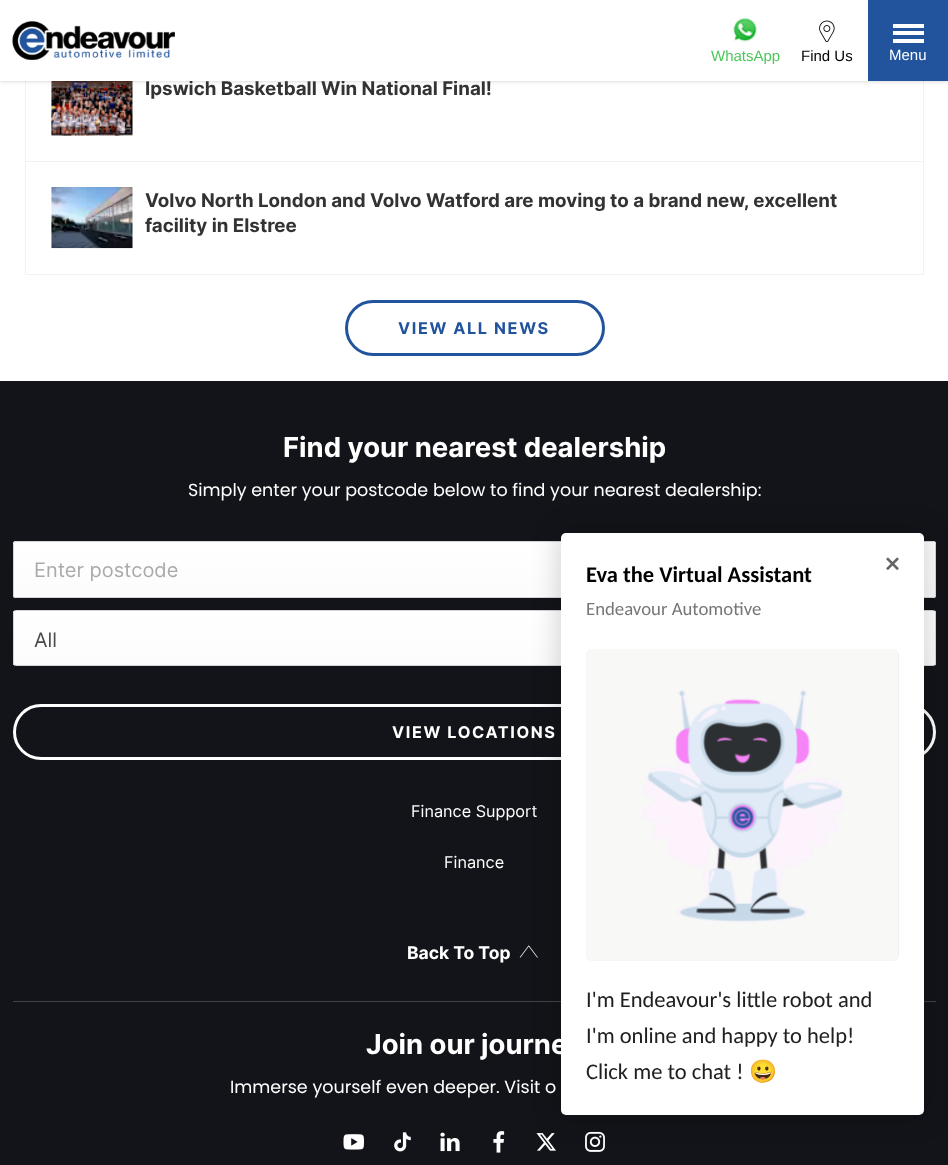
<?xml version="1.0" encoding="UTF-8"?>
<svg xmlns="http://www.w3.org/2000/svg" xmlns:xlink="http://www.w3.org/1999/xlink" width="948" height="1165">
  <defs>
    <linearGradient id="g1" gradientUnits="userSpaceOnUse" x1="474" y1="542" x2="474" y2="596"><stop offset="0" stop-color="#ffffff" /><stop offset="1" stop-color="#fcfcfc" /></linearGradient>
    <clipPath id="clip1"><rect x="13" y="610" width="923" height="56" rx="2.5" /></clipPath>
    <linearGradient id="g2" gradientUnits="userSpaceOnUse" x1="474" y1="611" x2="474" y2="665"><stop offset="0" stop-color="#ffffff" /><stop offset="1" stop-color="#fcfcfc" /></linearGradient>
  </defs>
  <rect width="100%" height="100%" fill="#ffffff" />
  <rect x="25.5" y="-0.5" width="898" height="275" fill="none" stroke="#f2f2f2" />
  <image x="51" y="81" width="82" height="55" xlink:href="image4.png" />
  <rect width="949" height="81" fill="#000000" fill-opacity="0.2" filter="blur(2px)" />
  <rect x="868" width="80" height="81" fill="#21549c" />
  <rect x="893" y="39" width="31" height="4" fill="#ffffff" />
  <rect x="893" y="24" width="31" height="4" fill="#ffffff" />
  <rect x="893" y="31" width="31" height="4" fill="#ffffff" />
  <rect x="26" y="161" width="897" height="1" fill="#f2f2f2" />
  <image x="51" y="187" width="82" height="62" xlink:href="image5.png" />
  <rect x="346.5" y="301.5" width="257" height="53" rx="26.5" fill="none" stroke="#21549c" stroke-width="3" />
  <rect y="381" width="948" height="784" fill="#131419" />
  <rect x="13" y="541" width="923" height="57" rx="2.5" fill="#fefefe" />
  <rect x="13" y="543" width="923" height="53" fill="url(#g1)" />
  <rect x="13.5" y="541.5" width="922" height="56" rx="2" fill="none" stroke="#d4d4d4" />
  <g clip-path="url(#clip1)">
    <rect x="13" y="611" width="923" height="54" fill="url(#g2)" />
  </g>
  <rect x="13.5" y="610.5" width="922" height="55" rx="2" fill="none" stroke="#d4d4d4" />
  <rect x="14.5" y="705.5" width="920" height="53" rx="26.5" fill="none" stroke="#ffffff" stroke-width="3" />
  <rect x="13" y="1001" width="923" height="1" fill="#424347" />
  <image x="519" y="945" width="19" height="13" xlink:href="image6.png" />
  <image x="343" y="1134" width="21" height="16" xlink:href="image7.png" />
  <image x="394" y="1132" width="17" height="20" xlink:href="image8.png" />
  <image x="440" y="1132" width="20" height="20" xlink:href="image9.png" />
  <image x="493" y="1131" width="12" height="22" xlink:href="image10.png" />
  <image x="536" y="1133" width="20" height="18" xlink:href="image11.png" />
  <image x="585" y="1131" width="20" height="21" xlink:href="image12.png" />
  <rect x="556" y="528" width="373" height="592" rx="10" fill="#000000" fill-opacity="0.15" filter="blur(12.5px)" />
  <rect x="561" y="533" width="363" height="582" rx="5" fill="#ffffff" />
  <image x="886" y="557" width="13" height="13" xlink:href="image13.png" />
  <rect x="586" y="649" width="313" height="312" rx="6" fill="#f0f0f0" />
  <image x="586" y="649" width="312" height="312" xlink:href="image14.png" />
  <text x="889" y="60" style="font-family: Liberation Sans; font-size: 15px; fill: #ffffff">Menu</text>
  <text x="145" y="95" style="font-family: Inter; font-size: 18.75px; font-weight: bold; fill: #333333">Ipswich Basketball Win National Final!</text>
  <rect width="868" height="81" fill="#ffffff" />
  <image x="12" y="20" width="163" height="40" xlink:href="image1.png" />
  <text x="801" y="61" style="font-family: Liberation Sans; font-size: 15px; fill: #000000">Find Us</text>
  <image x="819" y="20" width="16" height="22" xlink:href="image3.png" />
  <text x="711" y="61" style="font-family: Liberation Sans; font-size: 15px; fill: #4cc75b">WhatsApp</text>
  <image x="733" y="17" width="24" height="25" xlink:href="image2.png" />
  <text x="145" y="207" style="font-family: Inter; font-size: 18.75px; font-weight: bold; fill: #333333">Volvo North London and Volvo Watford are moving to a brand new, excellent</text>
  <text x="145" y="232" style="font-family: Inter; font-size: 18.75px; font-weight: bold; fill: #333333">facility in Elstree</text>
  <text x="398" y="334" style="font-family: Inter; font-size: 16.25px; font-weight: bold; letter-spacing: 1.6px; fill: #21549c">VIEW ALL NEWS</text>
  <text x="283" y="457" style="font-family: Inter; font-size: 27.5px; font-weight: bold; fill: #ffffff">Find your nearest dealership</text>
  <text x="188" y="496" style="font-family: Poppins; font-size: 17.5px; fill: #ffffff">Simply enter your postcode below to find your nearest dealership:</text>
  <text x="34" y="577" style="font-family: Inter; font-size: 20px; fill: #aaaaaa">Enter postcode</text>
  <text x="34" y="647" style="font-family: Inter; font-size: 20px; fill: #4c4c4c">All</text>
  <text x="392" y="738" style="font-family: Inter; font-size: 16.25px; font-weight: bold; letter-spacing: 1.6px; fill: #ffffff">VIEW LOCATIONS</text>
  <text x="411" y="817" style="font-family: Inter; font-size: 16.25px; fill: #ffffff">Finance Support</text>
  <text x="444" y="868" style="font-family: Inter; font-size: 16.25px; fill: #ffffff">Finance</text>
  <text x="407" y="959" style="font-family: Inter; font-size: 17.5px; font-weight: bold; fill: #ffffff">Back To Top</text>
  <text x="366" y="1054" style="font-family: Inter; font-size: 27.5px; font-weight: bold; fill: #ffffff">Join our journe</text>
  <text x="230" y="1093" style="font-family: Poppins; font-size: 17.5px; fill: #ffffff">Immerse yourself even deeper. Visit o</text>
  <text x="586" y="582" style="font-family: Carlito; font-size: 22.5px; font-weight: bold; fill: #000000">Eva the Virtual Assistant</text>
  <text x="586" y="615" style="font-family: Carlito; font-size: 18.75px; fill: #767676">Endeavour Automotive</text>
  <text x="586" y="1007" style="font-family: Carlito; font-size: 22.5px; fill: #212020">I'm Endeavour's little robot and</text>
  <text x="586" y="1043" style="font-family: Carlito; font-size: 22.5px; fill: #212020">I'm online and happy to help!</text>
  <text x="586" y="1079" style="font-family: Carlito; font-size: 22.5px; fill: #212020">Click me to chat !</text>
  <text x="749" y="1079" style="font-family: Noto Color Emoji; font-size: 22.5px; fill: #212020">😀</text>
</svg>
